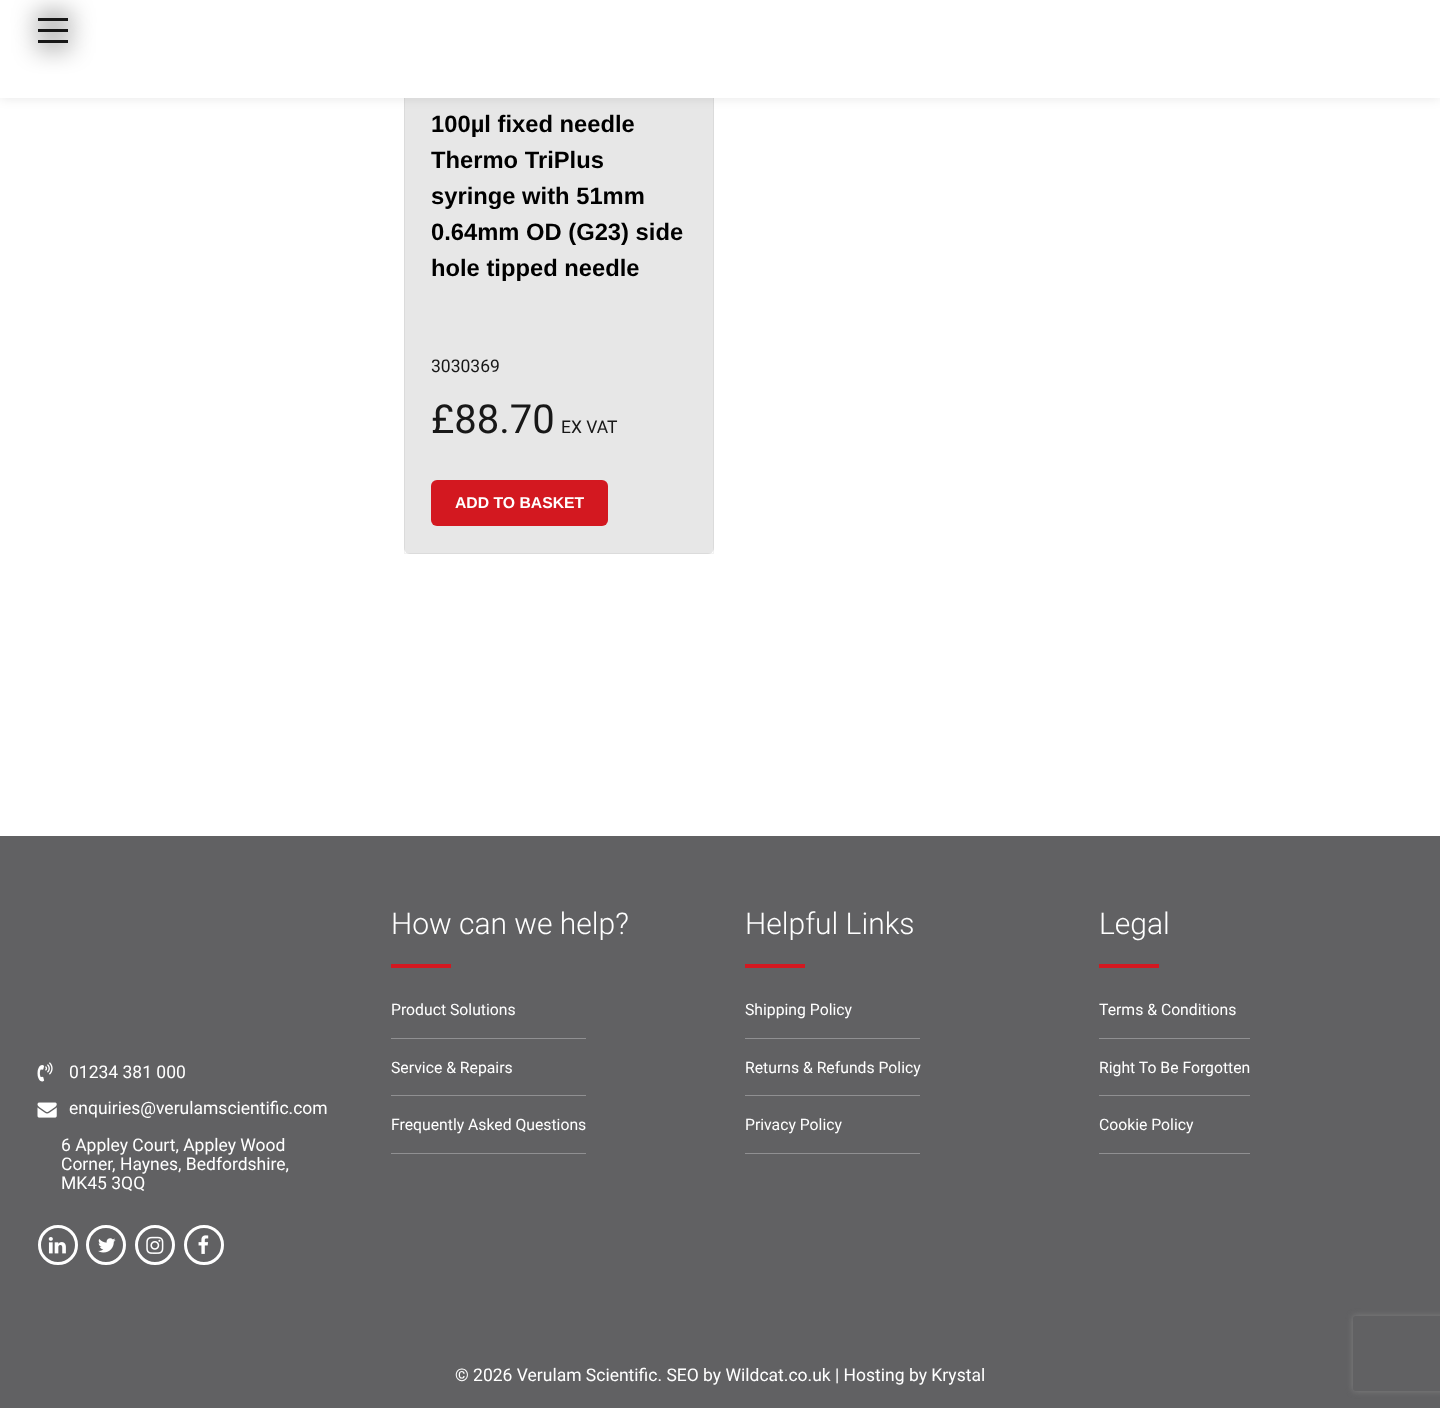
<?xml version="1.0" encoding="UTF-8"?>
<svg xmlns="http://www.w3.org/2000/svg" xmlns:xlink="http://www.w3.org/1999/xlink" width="1440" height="1408">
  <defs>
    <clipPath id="clip1"><path d="M 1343 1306 h 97 v 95 h -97 z m 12.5 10 h 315 c 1.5 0 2.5 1 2.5 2.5 v 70 c 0 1.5 -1 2.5 -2.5 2.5 h -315 c -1.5 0 -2.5 -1 -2.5 -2.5 v -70 c 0 -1.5 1 -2.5 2.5 -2.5 z" clip-rule="evenodd" /></clipPath>
  </defs>
  <rect width="100%" height="100%" fill="#ffffff" />
  <rect x="404" y="-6" width="310" height="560" rx="6" fill="#e7e7e7" />
  <rect x="404.5" y="-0.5" width="309" height="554" fill="none" stroke="#000000" stroke-opacity="0.05" />
  <rect width="1440" height="98" fill="#000000" fill-opacity="0.1" filter="blur(6px)" />
  <rect width="1440" height="98" fill="#ffffff" />
  <rect x="36" y="16" width="35" height="8" fill="#000000" fill-opacity="0.75" filter="blur(12.5px)" />
  <rect x="38" y="18" width="30" height="3" fill="#181818" />
  <rect x="38" y="29" width="30" height="3" fill="#181818" />
  <rect x="36" y="39" width="35" height="7" fill="#000000" fill-opacity="0.75" filter="blur(12.5px)" />
  <rect x="38" y="40" width="30" height="3" fill="#181818" />
  <rect x="431" y="480" width="177" height="46" rx="6" fill="#d31820" />
  <rect y="836" width="1440" height="572" fill="#616163" />
  <image x="37" y="1062" width="16" height="20" xlink:href="image1.png" />
  <image x="37" y="1102" width="20" height="16" xlink:href="image2.png" />
  <circle cx="58" cy="1245" r="18.5" fill="none" stroke="#ffffff" stroke-width="3" />
  <image x="48" y="1237" width="18" height="17" xlink:href="image3.png" />
  <circle cx="106" cy="1245" r="18.5" fill="none" stroke="#ffffff" stroke-width="3" />
  <image x="98" y="1238" width="18" height="15" xlink:href="image4.png" />
  <circle cx="155" cy="1245" r="18.5" fill="none" stroke="#ffffff" stroke-width="3" />
  <image x="146" y="1236" width="18" height="18" xlink:href="image5.png" />
  <circle cx="204" cy="1245" r="18.5" fill="none" stroke="#ffffff" stroke-width="3" />
  <image x="198" y="1235" width="11" height="19" xlink:href="image6.png" />
  <rect x="391" y="964" width="60" height="4" fill="#d31820" />
  <rect x="391" y="1038" width="195" height="1" fill="#909092" />
  <rect x="391" y="1095" width="195" height="1" fill="#909092" />
  <rect x="391" y="1153" width="195" height="1" fill="#909092" />
  <rect x="745" y="964" width="60" height="4" fill="#d31820" />
  <rect x="745" y="1038" width="175" height="1" fill="#909092" />
  <rect x="745" y="1095" width="175" height="1" fill="#909092" />
  <rect x="745" y="1153" width="175" height="1" fill="#909092" />
  <rect x="1099" y="964" width="60" height="4" fill="#d31820" />
  <rect x="1099" y="1038" width="151" height="1" fill="#909092" />
  <rect x="1099" y="1095" width="151" height="1" fill="#909092" />
  <rect x="1099" y="1153" width="151" height="1" fill="#909092" />
  <g clip-path="url(#clip1)">
    <rect x="1353" y="1316" width="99" height="75" rx="2.5" fill="#808080" filter="blur(3px)" />
  </g>
  <text x="431" y="132" style="font-family: Liberation Sans; font-size: 23.75px; font-weight: bold; fill: #000000">100µl fixed needle</text>
  <text x="431" y="168" style="font-family: Liberation Sans; font-size: 23.75px; font-weight: bold; fill: #000000">Thermo TriPlus</text>
  <text x="431" y="204" style="font-family: Liberation Sans; font-size: 23.75px; font-weight: bold; fill: #000000">syringe with 51mm</text>
  <text x="431" y="240" style="font-family: Liberation Sans; font-size: 23.75px; font-weight: bold; fill: #000000">0.64mm OD (G23) side</text>
  <text x="431" y="276" style="font-family: Liberation Sans; font-size: 23.75px; font-weight: bold; fill: #000000">hole tipped needle</text>
  <text x="431" y="372" style="font-family: Roboto; font-size: 17.5px; fill: #181818">3030369</text>
  <text x="431" y="433" style="font-family: Roboto; font-size: 40px; fill: #181818">£88.70</text>
  <text x="561" y="433" style="font-family: Roboto; font-size: 17.5px; fill: #181818">EX VAT</text>
  <text x="455" y="508" style="font-family: Liberation Sans; font-size: 15.75px; font-weight: bold; fill: #ffffff">ADD TO BASKET</text>
  <text x="69" y="1078" style="font-family: Roboto; font-size: 17.5px; fill: #ffffff">01234 381 000</text>
  <text x="69" y="1114" style="font-family: Roboto; font-size: 17.5px; fill: #ffffff">enquiries@verulamscientific.com</text>
  <text x="61" y="1151" style="font-family: Roboto; font-size: 17.5px; fill: #ffffff">6 Appley Court, Appley Wood</text>
  <text x="61" y="1170" style="font-family: Roboto; font-size: 17.5px; fill: #ffffff">Corner, Haynes, Bedfordshire,</text>
  <text x="61" y="1189" style="font-family: Roboto; font-size: 17.5px; fill: #ffffff">MK45 3QQ</text>
  <text x="391" y="934" style="font-family: Roboto; font-size: 30px; font-weight: 300; fill: #ffffff">How can we help?</text>
  <text x="391" y="1015" style="font-family: Roboto; font-size: 15.75px; fill: #ffffff">Product Solutions</text>
  <text x="391" y="1073" style="font-family: Roboto; font-size: 15.75px; fill: #ffffff">Service &amp; Repairs</text>
  <text x="391" y="1130" style="font-family: Roboto; font-size: 15.75px; fill: #ffffff">Frequently Asked Questions</text>
  <text x="745" y="934" style="font-family: Roboto; font-size: 30px; font-weight: 300; fill: #ffffff">Helpful Links</text>
  <text x="745" y="1015" style="font-family: Roboto; font-size: 15.75px; fill: #ffffff">Shipping Policy</text>
  <text x="745" y="1073" style="font-family: Roboto; font-size: 15.75px; fill: #ffffff">Returns &amp; Refunds Policy</text>
  <text x="745" y="1130" style="font-family: Roboto; font-size: 15.75px; fill: #ffffff">Privacy Policy</text>
  <text x="1099" y="934" style="font-family: Roboto; font-size: 30px; font-weight: 300; fill: #ffffff">Legal</text>
  <text x="1099" y="1015" style="font-family: Roboto; font-size: 15.75px; fill: #ffffff">Terms &amp; Conditions</text>
  <text x="1099" y="1073" style="font-family: Roboto; font-size: 15.75px; fill: #ffffff">Right To Be Forgotten</text>
  <text x="1099" y="1130" style="font-family: Roboto; font-size: 15.75px; fill: #ffffff">Cookie Policy</text>
  <text x="455" y="1381" style="font-family: Roboto; font-size: 17.5px; fill: #ffffff">© 2026 Verulam Scientific. SEO by Wildcat.co.uk | Hosting by Krystal</text>
</svg>
